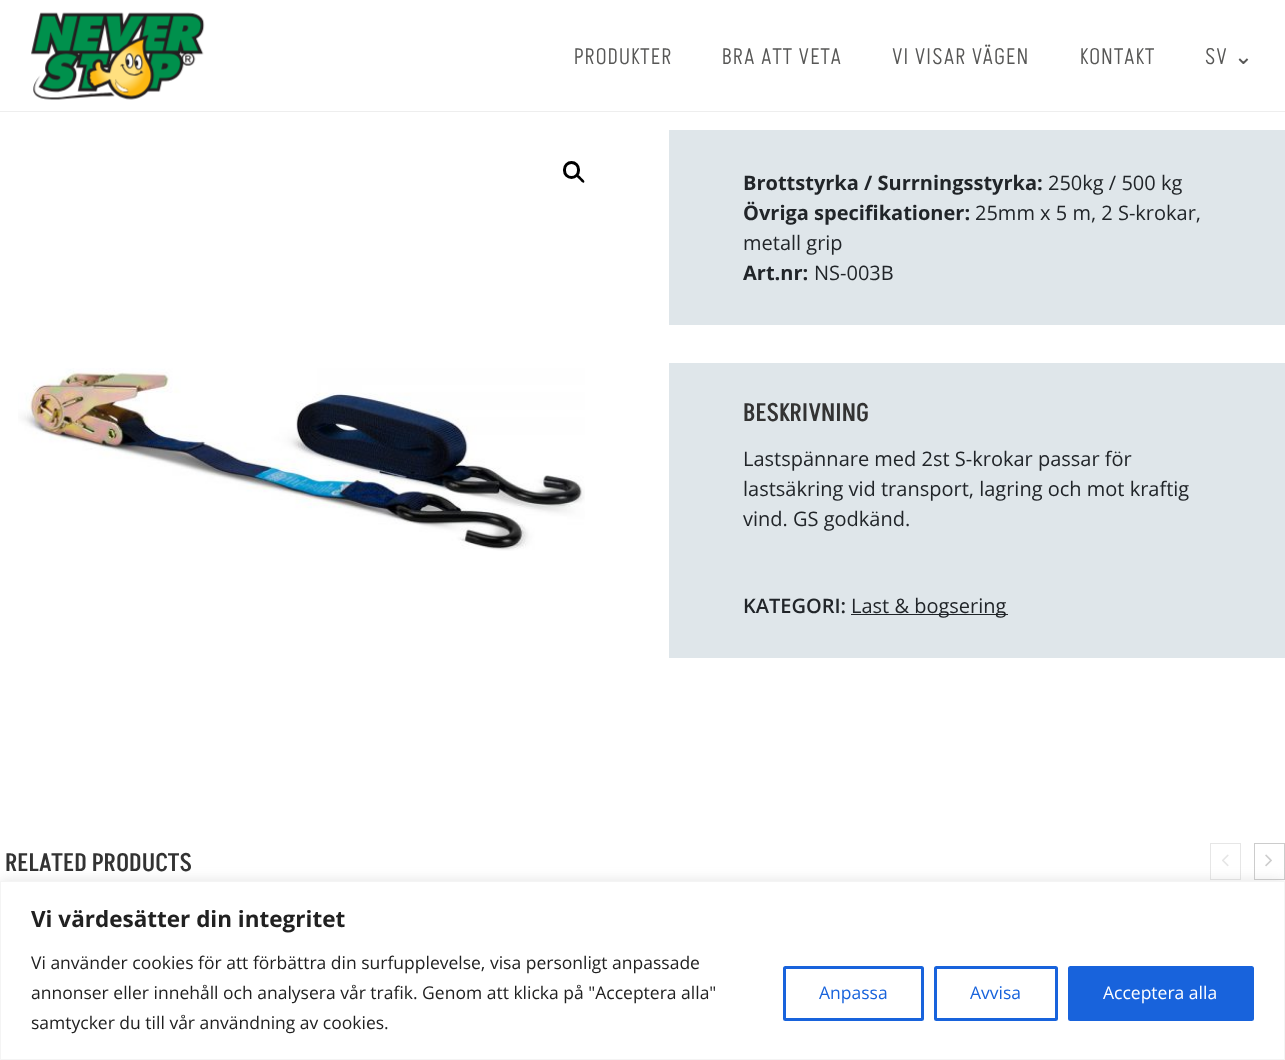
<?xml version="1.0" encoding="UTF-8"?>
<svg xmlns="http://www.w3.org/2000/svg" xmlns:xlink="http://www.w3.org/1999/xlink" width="1285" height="1060">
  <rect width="100%" height="100%" fill="#ffffff" />
  <rect y="111" width="1285" height="1" fill="#eeeeee" />
  <image x="31" y="12" width="174" height="88" xlink:href="image1.png" />
  <rect x="564.5" y="162.5" width="14" height="15" rx="7" fill="none" stroke="#000000" stroke-width="3" />
  <path d="M 577 175 c 1.5 -1 3.5 2 4.5 3 c 0.5 0.5 4 3 2.5 4.5 c -1.5 1 -3.5 -2 -4.5 -3 c -0.5 -0.5 -4 -3 -2.5 -4.5 z" fill="#000000" />
  <image x="18" y="368" width="567" height="183" xlink:href="image2.png" />
  <rect x="669" y="130" width="616" height="195" fill="#dfe6ea" />
  <rect x="669" y="363" width="616" height="295" fill="#dfe6ea" />
  <rect x="851" y="614" width="157" height="1" fill="#212529" />
  <rect x="1210.5" y="843.5" width="30" height="36" fill="none" stroke="#e6e6e6" />
  <image x="1222" y="854" width="7" height="13" xlink:href="image3.png" />
  <rect x="1254.5" y="843.5" width="30" height="36" fill="none" stroke="#cccccc" />
  <image x="1265" y="854" width="7" height="13" xlink:href="image4.png" />
  <rect y="880" width="1285" height="179" fill="#acabab" fill-opacity="0.3" filter="blur(6px)" />
  <rect x="0.5" y="881.5" width="1284" height="178" fill="#ffffff" stroke="#f4f4f4" />
  <rect x="784.5" y="967.5" width="138" height="52" rx="1" fill="none" stroke="#1863dc" stroke-width="3" />
  <rect x="935.5" y="967.5" width="121" height="52" rx="1" fill="none" stroke="#1863dc" stroke-width="3" />
  <rect x="1069.5" y="967.5" width="183" height="52" rx="1" fill="#1863dc" stroke="#1863dc" stroke-width="3" />
  <text x="574" y="64" style="font-family: Akshar; font-size: 22.5px; font-weight: 300; letter-spacing: 1.25px; fill: #575756">PRODUKTER</text>
  <text x="722" y="64" style="font-family: Akshar; font-size: 22.5px; font-weight: 300; letter-spacing: 1.25px; fill: #575756">BRA ATT VETA</text>
  <text x="892" y="64" style="font-family: Akshar; font-size: 22.5px; font-weight: 300; letter-spacing: 1.25px; fill: #575756">VI VISAR VÄGEN</text>
  <text x="1080" y="64" style="font-family: Akshar; font-size: 22.5px; font-weight: 300; letter-spacing: 1.25px; fill: #575756">KONTAKT</text>
  <text x="1205" y="64" style="font-family: Akshar; font-size: 22.5px; font-weight: 300; letter-spacing: 1.25px; fill: #575756">SV</text>
  <text x="1234" y="64" style="font-family: DejaVu Sans; font-size: 22.5px; letter-spacing: 1.25px; fill: #575756">⌄</text>
  <text x="743" y="190" style="font-family: Open Sans; font-size: 20px; font-weight: bold; fill: #212529">Brottstyrka / Surrningsstyrka:</text>
  <text x="1048" y="190" style="font-family: Open Sans; font-size: 20px; fill: #212529">250kg / 500 kg</text>
  <text x="743" y="220" style="font-family: Open Sans; font-size: 20px; font-weight: bold; fill: #212529">Övriga specifikationer:</text>
  <text x="975" y="220" style="font-family: Open Sans; font-size: 20px; fill: #212529">25mm x 5 m, 2 S-krokar,</text>
  <text x="743" y="250" style="font-family: Open Sans; font-size: 20px; fill: #212529">metall grip</text>
  <text x="743" y="280" style="font-family: Open Sans; font-size: 20px; font-weight: bold; fill: #212529">Art.nr:</text>
  <text x="814" y="280" style="font-family: Open Sans; font-size: 20px; fill: #212529">NS-003B</text>
  <text x="743" y="421" style="font-family: Akshar; font-size: 25px; font-weight: 500; fill: #333333">BESKRIVNING</text>
  <text x="743" y="466" style="font-family: Open Sans; font-size: 20px; fill: #212529">Lastspännare med 2st S-krokar passar för</text>
  <text x="743" y="496" style="font-family: Open Sans; font-size: 20px; fill: #212529">lastsäkring vid transport, lagring och mot kraftig</text>
  <text x="743" y="526" style="font-family: Open Sans; font-size: 20px; fill: #212529">vind. GS godkänd.</text>
  <text x="743" y="613" style="font-family: Open Sans; font-size: 20px; font-weight: 600; fill: #212529">KATEGORI:</text>
  <text x="851" y="613" style="font-family: Open Sans; font-size: 20px; fill: #212529">Last &amp; bogsering</text>
  <text x="5" y="871" style="font-family: Akshar; font-size: 25px; font-weight: 500; fill: #333333">RELATED PRODUCTS</text>
  <text x="31" y="927" style="font-family: Open Sans; font-size: 22.5px; font-weight: bold; fill: #212121">Vi värdesätter din integritet</text>
  <text x="31" y="969" style="font-family: Open Sans; font-size: 17.5px; fill: #212121">Vi använder cookies för att förbättra din surfupplevelse, visa personligt anpassade</text>
  <text x="31" y="999" style="font-family: Open Sans; font-size: 17.5px; fill: #212121">annonser eller innehåll och analysera vår trafik. Genom att klicka på "Acceptera alla"</text>
  <text x="31" y="1029" style="font-family: Open Sans; font-size: 17.5px; fill: #212121">samtycker du till vår användning av cookies.</text>
  <text x="819" y="999" style="font-family: Open Sans; font-size: 17.5px; fill: #1863dc">Anpassa</text>
  <text x="970" y="999" style="font-family: Open Sans; font-size: 17.5px; fill: #1863dc">Avvisa</text>
  <text x="1103" y="999" style="font-family: Open Sans; font-size: 17.5px; fill: #ffffff">Acceptera alla</text>
</svg>
